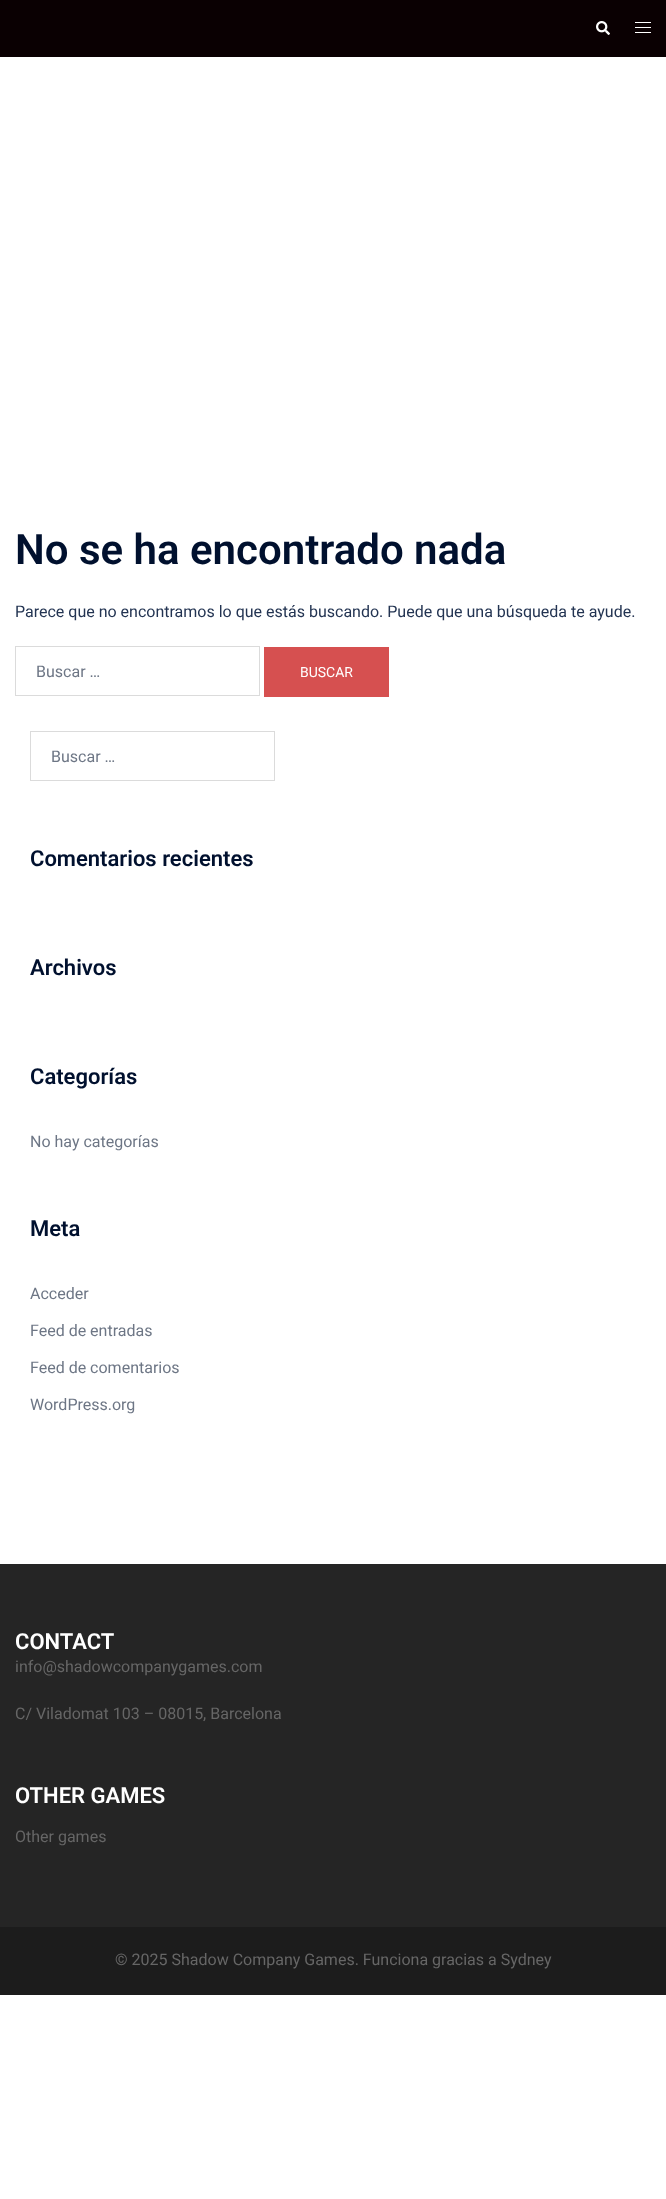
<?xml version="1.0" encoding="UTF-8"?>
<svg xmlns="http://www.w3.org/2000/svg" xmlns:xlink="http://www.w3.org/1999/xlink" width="666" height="2199">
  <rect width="100%" height="100%" fill="#ffffff" />
  <rect width="666" height="57" fill="#0a0002" />
  <image x="596" y="21" width="14" height="14" xlink:href="image1.png" />
  <rect x="635" y="22" width="16" height="1" fill="#ffffff" />
  <rect x="635" y="27" width="16" height="1" fill="#ffffff" />
  <rect x="635" y="32" width="16" height="1" fill="#ffffff" />
  <rect x="15.5" y="646.5" width="244" height="49" fill="none" stroke="#dbdbdb" />
  <rect x="264" y="647" width="125" height="50" fill="#d65050" />
  <rect x="30.5" y="731.5" width="244" height="49" fill="none" stroke="#dbdbdb" />
  <rect y="1564" width="666" height="363" fill="#252525" />
  <rect y="1927" width="666" height="68" fill="#1c1c1c" />
  <text x="15" y="564" style="font-family: Roboto; font-size: 42px; font-weight: 600; fill: #00102e">No se ha encontrado nada</text>
  <text x="15" y="617" style="font-family: Roboto; font-size: 16px; fill: #233452">Parece que no encontramos lo que estás buscando. Puede que una búsqueda te ayude.</text>
  <text x="36" y="677" style="font-family: Roboto; font-size: 16px; fill: #6d7685">Buscar …</text>
  <text x="300" y="677" style="font-family: Roboto; font-size: 14px; fill: #ffffff">BUSCAR</text>
  <text x="51" y="762" style="font-family: Roboto; font-size: 16px; fill: #6d7685">Buscar …</text>
  <text x="30" y="866" style="font-family: Roboto; font-size: 22px; font-weight: 600; fill: #00102e">Comentarios recientes</text>
  <text x="30" y="975" style="font-family: Roboto; font-size: 22px; font-weight: 600; fill: #00102e">Archivos</text>
  <text x="30" y="1084" style="font-family: Roboto; font-size: 22px; font-weight: 600; fill: #00102e">Categorías</text>
  <text x="30" y="1147" style="font-family: Roboto; font-size: 16px; fill: #6d7685">No hay categorías</text>
  <text x="30" y="1236" style="font-family: Roboto; font-size: 22px; font-weight: 600; fill: #00102e">Meta</text>
  <text x="30" y="1299" style="font-family: Roboto; font-size: 16px; fill: #6d7685">Acceder</text>
  <text x="30" y="1336" style="font-family: Roboto; font-size: 16px; fill: #6d7685">Feed de entradas</text>
  <text x="30" y="1373" style="font-family: Roboto; font-size: 16px; fill: #6d7685">Feed de comentarios</text>
  <text x="30" y="1410" style="font-family: Roboto; font-size: 16px; fill: #6d7685">WordPress.org</text>
  <text x="15" y="1649" style="font-family: Roboto; font-size: 22px; font-weight: 600; fill: #ffffff">CONTACT</text>
  <text x="15" y="1672" style="font-family: Roboto; font-size: 16px; fill: #666666">info@shadowcompanygames.com</text>
  <text x="15" y="1719" style="font-family: Roboto; font-size: 16px; fill: #666666">C/ Viladomat 103 – 08015, Barcelona</text>
  <text x="15" y="1803" style="font-family: Roboto; font-size: 22px; font-weight: 600; fill: #ffffff">OTHER GAMES</text>
  <text x="15" y="1842" style="font-family: Roboto; font-size: 16px; fill: #666666">Other games</text>
  <text x="115" y="1965" style="font-family: Roboto; font-size: 16px; fill: #666666">© 2025 Shadow Company Games. Funciona gracias a Sydney</text>
</svg>
